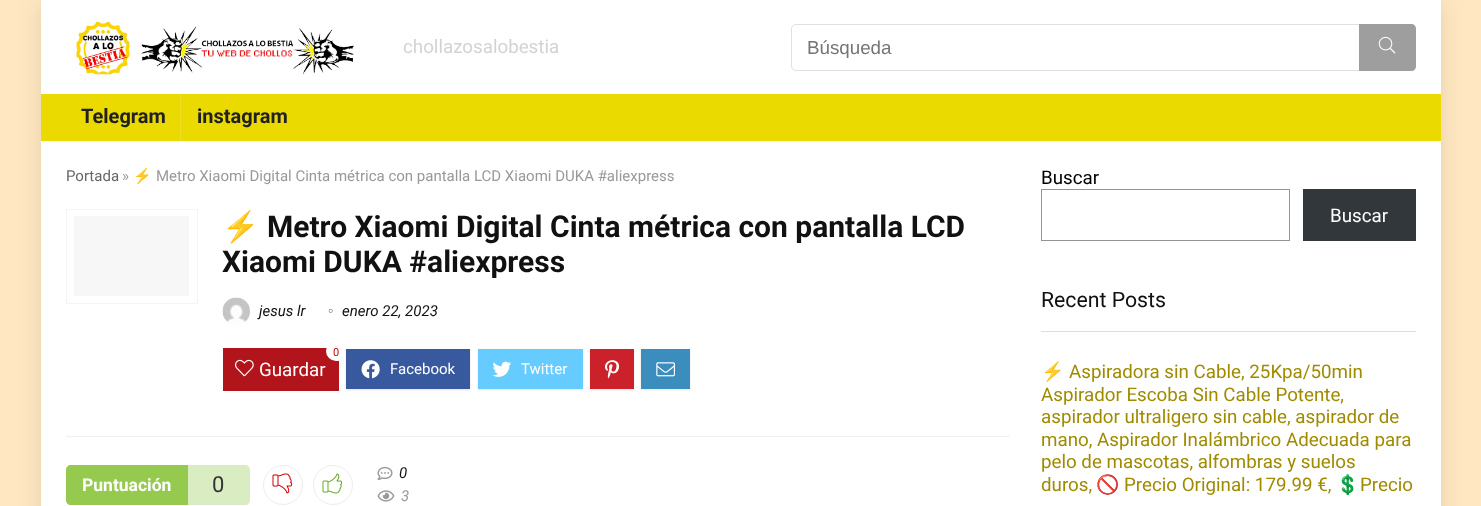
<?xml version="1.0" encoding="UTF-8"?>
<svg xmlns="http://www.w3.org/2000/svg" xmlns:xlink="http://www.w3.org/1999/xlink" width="1481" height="506">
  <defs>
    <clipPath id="clip1"><rect x="223" y="344" width="762" height="55" /></clipPath>
    <clipPath id="clip2"><rect x="1041" y="285" width="375" height="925" /></clipPath>
  </defs>
  <rect width="100%" height="100%" fill="#ffe8c1" />
  <rect x="41" width="1400" height="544" fill="#000000" fill-opacity="0.1" filter="blur(12.5px)" />
  <rect x="41" width="1400" height="506" fill="#ffffff" />
  <image x="76" y="21" width="278" height="54" xlink:href="image1.png" />
  <rect x="791.5" y="24.5" width="624" height="46" rx="4.5" fill="none" stroke="#e1e1e1" />
  <path d="M 1359 24 h 52 c 3 0 5 2 5 5 v 37 c 0 3 -2 5 -5 5 h -52 z" fill="#9e9e9e" />
  <image x="1378" y="36" width="18" height="18" xlink:href="image2.png" />
  <rect x="41" y="94" width="1400" height="47" fill="#eada00" />
  <rect x="180" y="94" width="1" height="47" fill="#ede026" />
  <rect x="66.5" y="209.5" width="131" height="94" fill="none" stroke="#f4f4f4" />
  <rect x="74" y="216" width="115" height="80" fill="#f7f7f7" />
  <image x="222" y="297" width="28" height="28" xlink:href="image3.png" />
  <image x="328" y="309" width="5" height="4" xlink:href="image4.png" />
  <rect x="223" y="348" width="116" height="43" fill="#b1141a" />
  <g clip-path="url(#clip1)">
    <rect x="326" y="341" width="22" height="20" rx="10" fill="#ffffff" />
  </g>
  <image x="235" y="359" width="19" height="18" xlink:href="image5.png" />
  <rect x="346" y="350" width="124" height="40" fill="#e4e4e4" filter="blur(1px)" />
  <rect x="346" y="349" width="124" height="40" fill="#39599f" />
  <image x="361" y="360" width="19" height="19" xlink:href="image6.png" />
  <rect x="478" y="350" width="105" height="40" fill="#e4e4e4" filter="blur(1px)" />
  <rect x="478" y="349" width="105" height="40" fill="#66ccff" />
  <image x="492" y="361" width="20" height="16" xlink:href="image7.png" />
  <rect x="590" y="350" width="44" height="40" fill="#e4e4e4" filter="blur(1px)" />
  <rect x="590" y="349" width="44" height="40" fill="#ca212a" />
  <image x="605" y="360" width="15" height="19" xlink:href="image8.png" />
  <rect x="641" y="350" width="49" height="40" fill="#e4e4e4" filter="blur(1px)" />
  <rect x="641" y="349" width="49" height="40" fill="#3b8dbd" />
  <image x="656" y="362" width="19" height="15" xlink:href="image9.png" />
  <rect x="66" y="436" width="944" height="1" fill="#f0f0f0" />
  <path d="M 71 465 h 117 v 40 h -117 c -3 0 -5 -2 -5 -5 v -30 c 0 -3 2 -5 5 -5 z" fill="#96ca4e" />
  <path d="M 188 465 h 57 c 3 0 5 2 5 5 v 30 c 0 3 -2 5 -5 5 h -57 z" fill="#daecc2" />
  <circle cx="283" cy="485" r="19.5" fill="none" stroke="#ededed" />
  <image x="272" y="473" width="21" height="21" xlink:href="image10.png" />
  <circle cx="333" cy="485" r="19.5" fill="none" stroke="#ededed" />
  <image x="322" y="473" width="21" height="21" xlink:href="image11.png" />
  <image x="377" y="466" width="16" height="14" xlink:href="image12.png" />
  <image x="377" y="490" width="18" height="12" xlink:href="image13.png" />
  <rect x="1041.5" y="189.5" width="248" height="51" fill="none" stroke="#949494" />
  <rect x="1303" y="189" width="113" height="52" fill="#32373c" />
  <rect x="1041" y="331" width="375" height="1" fill="#dddddd" />
  <text x="403" y="53" style="font-family: Roboto; font-size: 18.75px; fill: #d3d3d3">chollazosalobestia</text>
  <text x="807" y="54" style="font-family: Liberation Sans; font-size: 18.75px; fill: #757575">Búsqueda</text>
  <text x="81" y="123" style="font-family: Roboto; font-size: 20px; font-weight: bold; fill: #212121">Telegram</text>
  <text x="197" y="123" style="font-family: Roboto; font-size: 20px; font-weight: bold; fill: #212121">instagram</text>
  <text x="66" y="181" style="font-family: Roboto; font-size: 15px; fill: #666666">Portada</text>
  <text x="122" y="181" style="font-family: Roboto; font-size: 15px; fill: #999999">»</text>
  <text x="133" y="181" style="font-family: Noto Color Emoji; font-size: 15px; fill: #999999">⚡️</text>
  <text x="156" y="181" style="font-family: Roboto; font-size: 15px; fill: #999999">Metro Xiaomi Digital Cinta métrica con pantalla LCD Xiaomi DUKA #aliexpress</text>
  <text x="222" y="237" style="font-family: Noto Color Emoji; font-size: 30px; font-weight: bold; fill: #111111">⚡️</text>
  <text x="267" y="237" style="font-family: Roboto; font-size: 30px; font-weight: bold; fill: #111111">Metro Xiaomi Digital Cinta métrica con pantalla LCD</text>
  <text x="222" y="272" style="font-family: Roboto; font-size: 30px; font-weight: bold; fill: #111111">Xiaomi DUKA #aliexpress</text>
  <text x="259" y="316" style="font-family: Roboto; font-size: 15px; font-style: italic; fill: #111111">jesus lr</text>
  <text x="342" y="316" style="font-family: Roboto; font-size: 15px; font-style: italic; fill: #111111">enero 22, 2023</text>
  <text x="333" y="356" style="font-family: Roboto; font-size: 11px; fill: #cc0000">0</text>
  <text x="259" y="376" style="font-family: Roboto; font-size: 18.75px; fill: #ffffff">Guardar</text>
  <text x="390" y="374" style="font-family: Roboto; font-size: 15px; fill: #ffffff">Facebook</text>
  <text x="521" y="374" style="font-family: Roboto; font-size: 15px; fill: #ffffff">Twitter</text>
  <text x="82" y="491" style="font-family: Roboto; font-size: 17.5px; font-weight: bold; fill: #ffffff">Puntuación</text>
  <text x="212" y="492" style="font-family: Roboto; font-size: 22px; fill: #333333">0</text>
  <text x="399" y="478" style="font-family: Roboto; font-size: 15px; font-style: italic; fill: #111111">0</text>
  <text x="401" y="501" style="font-family: Roboto; font-size: 15px; font-style: italic; fill: #999999">3</text>
  <text x="1041" y="184" style="font-family: Roboto; font-size: 18.75px; fill: #000000">Buscar</text>
  <text x="1330" y="222" style="font-family: Roboto; font-size: 18.75px; fill: #ffffff">Buscar</text>
  <text x="1041" y="307" style="font-family: Roboto; font-size: 21.25px; fill: #111111">Recent Posts</text>
  <g clip-path="url(#clip2)">
    <text x="1041" y="378" style="font-family: Noto Color Emoji; font-size: 18.75px; fill: #a08b00">⚡️</text>
  </g>
  <text x="1069" y="378" style="font-family: Roboto; font-size: 18.75px; fill: #a08b00">Aspiradora sin Cable, 25Kpa/50min</text>
  <text x="1041" y="401" style="font-family: Roboto; font-size: 18.75px; fill: #a08b00">Aspirador Escoba Sin Cable Potente,</text>
  <text x="1041" y="423" style="font-family: Roboto; font-size: 18.75px; fill: #a08b00">aspirador ultraligero sin cable, aspirador de</text>
  <text x="1041" y="446" style="font-family: Roboto; font-size: 18.75px; fill: #a08b00">mano, Aspirador Inalámbrico Adecuada para</text>
  <text x="1041" y="468" style="font-family: Roboto; font-size: 18.75px; fill: #a08b00">pelo de mascotas, alfombras y suelos</text>
  <text x="1041" y="491" style="font-family: Roboto; font-size: 18.75px; fill: #a08b00">duros,</text>
  <text x="1096" y="491" style="font-family: Noto Color Emoji; font-size: 18.75px; fill: #a08b00">🚫</text>
  <text x="1124" y="491" style="font-family: Roboto; font-size: 18.75px; fill: #a08b00">Precio Original: 179.99 €,</text>
  <text x="1336" y="491" style="font-family: Noto Color Emoji; font-size: 18.75px; fill: #a08b00">💲</text>
  <text x="1360" y="491" style="font-family: Roboto; font-size: 18.75px; fill: #a08b00">Precio</text>
</svg>
